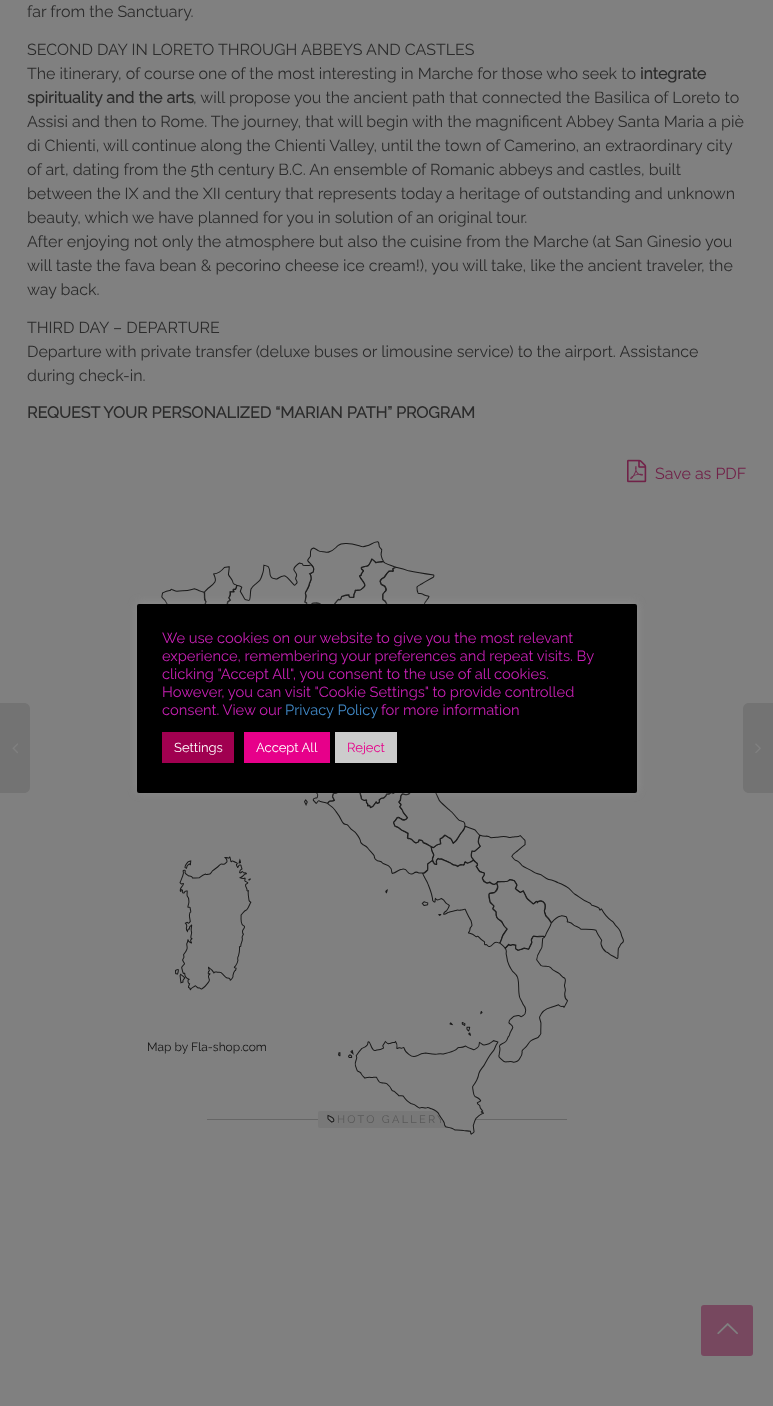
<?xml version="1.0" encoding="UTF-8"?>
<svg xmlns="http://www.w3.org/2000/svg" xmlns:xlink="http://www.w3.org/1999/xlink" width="773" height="1406">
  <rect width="100%" height="100%" fill="#808080" />
  <image x="627" y="459" width="20" height="24" xlink:href="image1.png" />
  <path d="M -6 703 h 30 c 3.5 0 6 2.5 6 6 v 78 c 0 3.5 -2.5 6 -6 6 h -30 z" fill="#737373" />
  <image x="12" y="743" width="6" height="11" xlink:href="image3.png" />
  <path d="M 749 703 h 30 v 90 h -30 c -3.5 0 -6 -2.5 -6 -6 v -78 c 0 -3.5 2.5 -6 6 -6 z" fill="#737373" />
  <image x="755" y="743" width="6" height="10" xlink:href="image4.png" />
  <rect x="207" y="1119" width="360" height="1" fill="#666666" />
  <rect x="318" y="1111" width="137" height="17" rx="2" fill="#787878" />
  <rect x="701" y="1305" width="52" height="51" rx="3" fill="#77485f" />
  <image x="717" y="1323" width="21" height="12" xlink:href="image5.png" />
  <text x="27" y="17" style="font-family: Raleway; font-size: 16px; font-weight: 100; fill: #2b2b2b">far from the Sanctuary.</text>
  <text x="27" y="55" style="font-family: Raleway; font-size: 16px; font-weight: 100; fill: #2b2b2b">SECOND DAY IN LORETO THROUGH ABBEYS AND CASTLES</text>
  <text x="27" y="79" style="font-family: Raleway; font-size: 16px; font-weight: 100; fill: #2b2b2b">The itinerary, of course one of the most interesting in Marche for those who seek to</text>
  <text x="640" y="79" style="font-family: Raleway; font-size: 16px; font-weight: bold; fill: #2b2b2b">integrate</text>
  <text x="27" y="103" style="font-family: Raleway; font-size: 16px; font-weight: bold; fill: #2b2b2b">spirituality and the arts</text>
  <text x="193" y="103" style="font-family: Raleway; font-size: 16px; font-weight: 100; fill: #2b2b2b">, will propose you the ancient path that connected the Basilica of Loreto to</text>
  <text x="27" y="127" style="font-family: Raleway; font-size: 16px; font-weight: 100; fill: #2b2b2b">Assisi and then to Rome. The journey, that will begin with the magnificent Abbey Santa Maria a piè</text>
  <text x="27" y="151" style="font-family: Raleway; font-size: 16px; font-weight: 100; fill: #2b2b2b">di Chienti, will continue along the Chienti Valley, until the town of Camerino, an extraordinary city</text>
  <text x="27" y="175" style="font-family: Raleway; font-size: 16px; font-weight: 100; fill: #2b2b2b">of art, dating from the 5th century B.C. An ensemble of Romanic abbeys and castles, built</text>
  <text x="27" y="199" style="font-family: Raleway; font-size: 16px; font-weight: 100; fill: #2b2b2b">between the IX and the XII century that represents today a heritage of outstanding and unknown</text>
  <text x="27" y="223" style="font-family: Raleway; font-size: 16px; font-weight: 100; fill: #2b2b2b">beauty, which we have planned for you in solution of an original tour.</text>
  <text x="27" y="247" style="font-family: Raleway; font-size: 16px; font-weight: 100; fill: #2b2b2b">After enjoying not only the atmosphere but also the cuisine from the Marche (at San Ginesio you</text>
  <text x="27" y="271" style="font-family: Raleway; font-size: 16px; font-weight: 100; fill: #2b2b2b">will taste the fava bean &amp; pecorino cheese ice cream!), you will take, like the ancient traveler, the</text>
  <text x="27" y="295" style="font-family: Raleway; font-size: 16px; font-weight: 100; fill: #2b2b2b">way back.</text>
  <text x="27" y="333" style="font-family: Raleway; font-size: 16px; font-weight: 100; fill: #2b2b2b">THIRD DAY – DEPARTURE</text>
  <text x="27" y="357" style="font-family: Raleway; font-size: 16px; font-weight: 100; fill: #2b2b2b">Departure with private transfer (deluxe buses or limousine service) to the airport. Assistance</text>
  <text x="27" y="381" style="font-family: Raleway; font-size: 16px; font-weight: 100; fill: #2b2b2b">during check-in.</text>
  <text x="27" y="418" style="font-family: Raleway; font-size: 16px; font-weight: bold; fill: #2b2b2b">REQUEST YOUR PERSONALIZED “MARIAN PATH” PROGRAM</text>
  <text x="655" y="479" style="font-family: Raleway; font-size: 16px; font-weight: 100; fill: #712249">Save as PDF</text>
  <text x="337" y="1123" style="font-family: Raleway; font-size: 11px; font-weight: 100; letter-spacing: 2.25px; fill: #585858">HOTO GALLERY</text>
  <image x="161" y="541" width="463" height="594" xlink:href="image2.png" />
  <text x="147" y="1051" style="font-family: Raleway; font-size: 12px; font-weight: 100; fill: #131313">Map by Fla-shop.com</text>
  <rect x="137" y="603" width="500" height="189" rx="2" fill="#acabab" fill-opacity="0.3" filter="blur(5px)" />
  <rect x="137" y="604" width="500" height="189" rx="2" fill="#000000" />
  <text x="162" y="643" style="font-family: Raleway; font-size: 14.7px; font-weight: 100; fill: #c920b5">We use cookies on our website to give you the most relevant</text>
  <text x="162" y="661" style="font-family: Raleway; font-size: 14.7px; font-weight: 100; fill: #c920b5">experience, remembering your preferences and repeat visits. By</text>
  <text x="162" y="679" style="font-family: Raleway; font-size: 14.7px; font-weight: 100; fill: #c920b5">clicking "Accept All", you consent to the use of all cookies.</text>
  <text x="162" y="697" style="font-family: Raleway; font-size: 14.7px; font-weight: 100; fill: #c920b5">However, you can visit "Cookie Settings" to provide controlled</text>
  <text x="162" y="715" style="font-family: Raleway; font-size: 14.7px; font-weight: 100; fill: #c920b5">consent. View our</text>
  <text x="285" y="715" style="font-family: Raleway; font-size: 14.7px; font-weight: 100; fill: #428bca">Privacy Policy</text>
  <text x="381" y="715" style="font-family: Raleway; font-size: 14.7px; font-weight: 100; fill: #c920b5">for more information</text>
  <rect x="162" y="732" width="72" height="31" fill="#a00050" />
  <text x="174" y="752" style="font-family: Raleway; font-size: 13px; font-weight: 100; fill: #ffffff">Settings</text>
  <rect x="244" y="732" width="86" height="31" fill="#e7008a" />
  <text x="256" y="752" style="font-family: Raleway; font-size: 13px; font-weight: 100; fill: #ffffff">Accept All</text>
  <rect x="335" y="732" width="62" height="31" fill="#cccccc" />
  <text x="347" y="752" style="font-family: Raleway; font-size: 13px; font-weight: 100; fill: #e7008a">Reject</text>
</svg>
